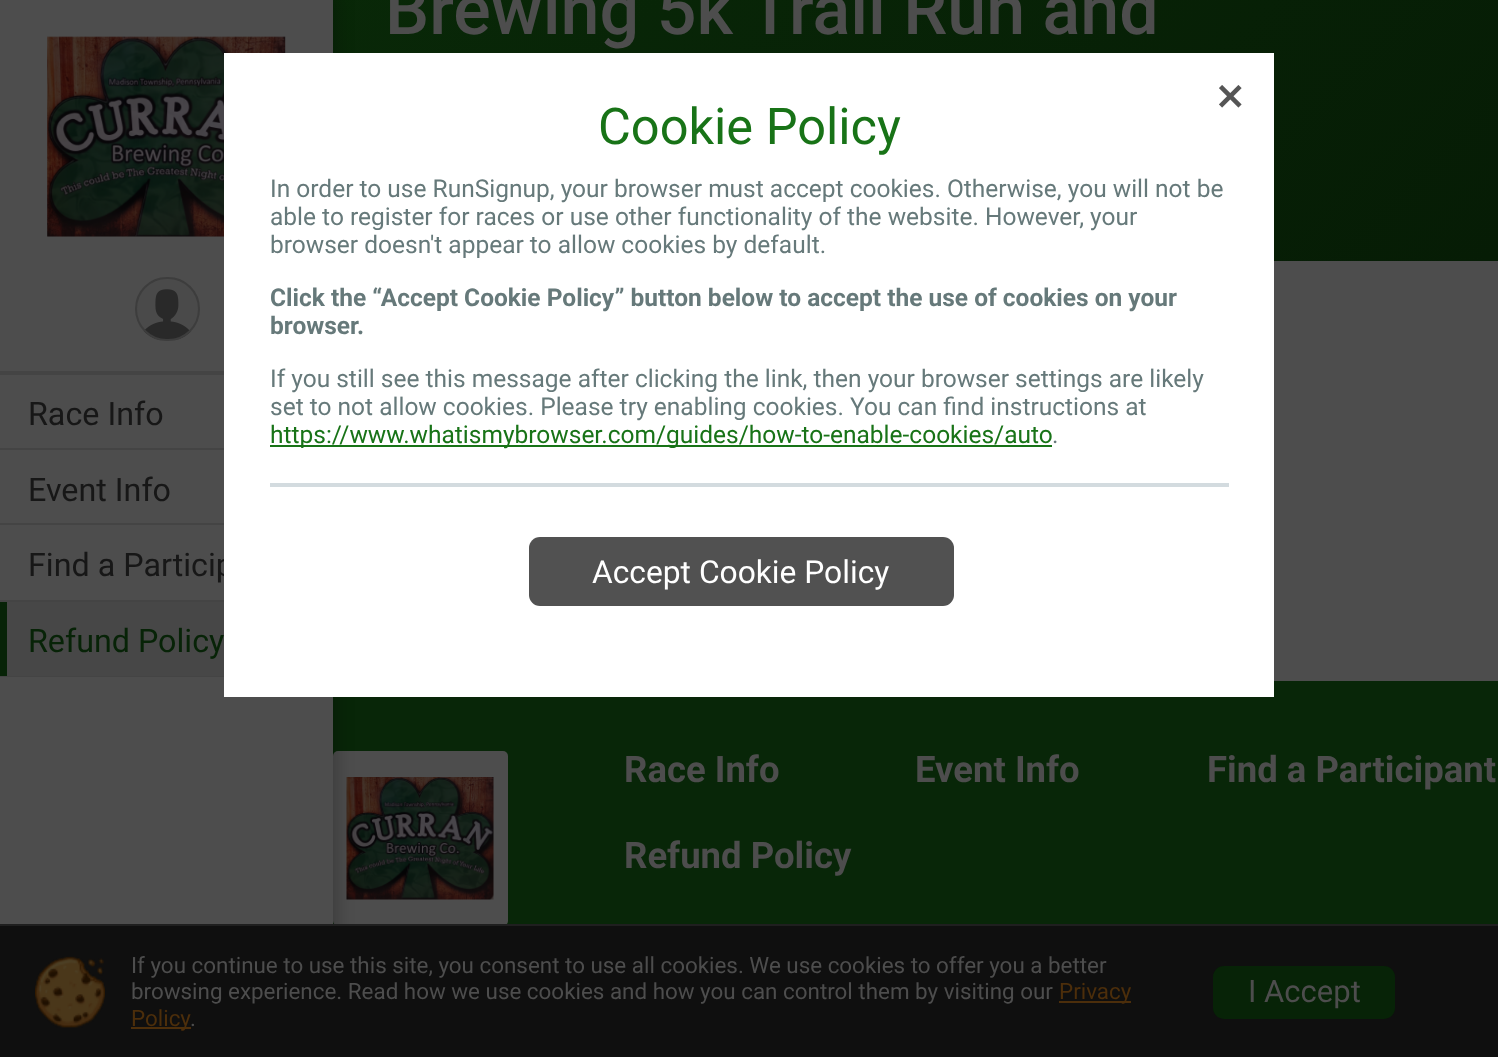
<?xml version="1.0" encoding="UTF-8"?>
<svg xmlns="http://www.w3.org/2000/svg" xmlns:xlink="http://www.w3.org/1999/xlink" width="1498" height="1057">
  <defs>
    <linearGradient id="g1" gradientUnits="userSpaceOnUse" x1="1310" y1="448" x2="520" y2="-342"><stop offset="0" stop-color="#061c05" /><stop offset="1" stop-color="#092908" /></linearGradient>
  </defs>
  <rect width="100%" height="100%" fill="#4d4d4d" />
  <rect x="333" width="1165" height="261" fill="url(#g1)" />
  <rect x="333" y="681" width="1165" height="243" fill="#082608" />
  <rect x="333" y="751" width="175" height="175" rx="5" fill="#4d4d4d" />
  <image x="346" y="777" width="148" height="123" xlink:href="image3.png" />
  <rect x="-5" y="-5" width="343" height="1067" fill="#000000" fill-opacity="0.2" filter="blur(8px)" />
  <rect width="333" height="924" fill="#4d4d4d" />
  <image x="47" y="36" width="239" height="201" xlink:href="image1.png" />
  <image x="137" y="278" width="61" height="62" xlink:href="image2.png" />
  <rect x="136" y="278" width="63" height="62" rx="31" fill="none" stroke="#3d3d3d" stroke-width="2" />
  <rect y="371" width="224" height="4" fill="#444444" />
  <rect y="448" width="224" height="2" fill="#444444" />
  <rect y="523" width="224" height="2" fill="#444444" />
  <rect y="600" width="224" height="2" fill="#444444" />
  <rect y="676" width="224" height="1" fill="#444444" />
  <rect x="7" y="602" width="217" height="74" fill="#474747" />
  <rect y="602" width="7" height="74" fill="#072307" />
  <rect y="926" width="1498" height="131" fill="#0f0f0f" />
  <rect y="924" width="1498" height="2" fill="#1f1f1f" />
  <image x="35" y="956" width="70" height="72" xlink:href="image5.png" />
  <rect x="1059" y="1001" width="72" height="2" fill="#4c2e0b" />
  <rect x="131" y="1027" width="60" height="2" fill="#4c2e0b" />
  <rect x="1213" y="966" width="182" height="53" rx="11" fill="#072307" />
  <text x="385" y="34" style="font-family: Roboto; font-size: 70px; font-weight: 500; fill: #4d4d4d">Brewing 5k Trail Run and</text>
  <text x="28" y="425" style="font-family: Roboto; font-size: 32.25px; fill: #171717">Race Info</text>
  <text x="28" y="501" style="font-family: Roboto; font-size: 32.25px; fill: #171717">Event Info</text>
  <text x="28" y="576" style="font-family: Roboto; font-size: 32.25px; fill: #171717">Find a Particip</text>
  <text x="28" y="652" style="font-family: Roboto; font-size: 32.25px; fill: #072307">Refund Policy</text>
  <text x="624" y="782" style="font-family: Roboto; font-size: 36.5px; font-weight: bold; fill: #4d4d4d">Race Info</text>
  <text x="624" y="868" style="font-family: Roboto; font-size: 36.5px; font-weight: bold; fill: #4d4d4d">Refund Policy</text>
  <text x="915" y="782" style="font-family: Roboto; font-size: 36.5px; font-weight: bold; fill: #4d4d4d">Event Info</text>
  <text x="1207" y="782" style="font-family: Roboto; font-size: 36.5px; font-weight: bold; fill: #4d4d4d">Find a Participant</text>
  <rect x="225" y="54" width="1048" height="642" fill="none" stroke="#ffffff" stroke-width="2" />
  <rect x="226" y="55" width="1046" height="640" fill="#ffffff" />
  <image x="1219" y="85" width="23" height="23" xlink:href="image4.png" />
  <text x="598" y="144" style="font-family: Roboto; font-size: 50.5px; fill: #187317">Cookie Policy</text>
  <text x="270" y="197" style="font-family: Roboto; font-size: 24.5px; fill: #66797a">In order to use RunSignup, your browser must accept cookies. Otherwise, you will not be</text>
  <text x="270" y="225" style="font-family: Roboto; font-size: 24.5px; fill: #66797a">able to register for races or use other functionality of the website. However, your</text>
  <text x="270" y="253" style="font-family: Roboto; font-size: 24.5px; fill: #66797a">browser doesn't appear to allow cookies by default.</text>
  <text x="270" y="306" style="font-family: Roboto; font-size: 24.5px; font-weight: bold; fill: #66797a">Click the “Accept Cookie Policy” button below to accept the use of cookies on your</text>
  <text x="270" y="334" style="font-family: Roboto; font-size: 24.5px; font-weight: bold; fill: #66797a">browser.</text>
  <text x="270" y="387" style="font-family: Roboto; font-size: 24.5px; fill: #66797a">If you still see this message after clicking the link, then your browser settings are likely</text>
  <text x="270" y="415" style="font-family: Roboto; font-size: 24.5px; fill: #66797a">set to not allow cookies. Please try enabling cookies. You can find instructions at</text>
  <rect x="270" y="445" width="782" height="2" fill="#187317" />
  <text x="270" y="443" style="font-family: Roboto; font-size: 24.5px; fill: #187317">https://www.whatismybrowser.com/guides/how-to-enable-cookies/auto</text>
  <text x="1052" y="443" style="font-family: Roboto; font-size: 24.5px; fill: #66797a">.</text>
  <rect x="270" y="483" width="959" height="4" fill="#d3dbdf" />
  <rect x="529" y="537" width="425" height="69" rx="11" fill="#515151" />
  <text x="592" y="583" style="font-family: Roboto; font-size: 31.75px; fill: #ffffff">Accept Cookie Policy</text>
  <text x="131" y="973" style="font-family: Roboto; font-size: 22.4px; fill: #4d4d4d">If you continue to use this site, you consent to use all cookies. We use cookies to offer you a better</text>
  <text x="131" y="999" style="font-family: Roboto; font-size: 22.4px; fill: #4d4d4d">browsing experience. Read how we use cookies and how you can control them by visiting our</text>
  <text x="1059" y="999" style="font-family: Roboto; font-size: 22.4px; fill: #4c2e0b">Privacy</text>
  <text x="131" y="1026" style="font-family: Roboto; font-size: 22.4px; fill: #4c2e0b">Policy</text>
  <text x="190" y="1026" style="font-family: Roboto; font-size: 22.4px; fill: #4d4d4d">.</text>
  <text x="1248" y="1002" style="font-family: Roboto; font-size: 31px; fill: #4d4d4d">I Accept</text>
</svg>
